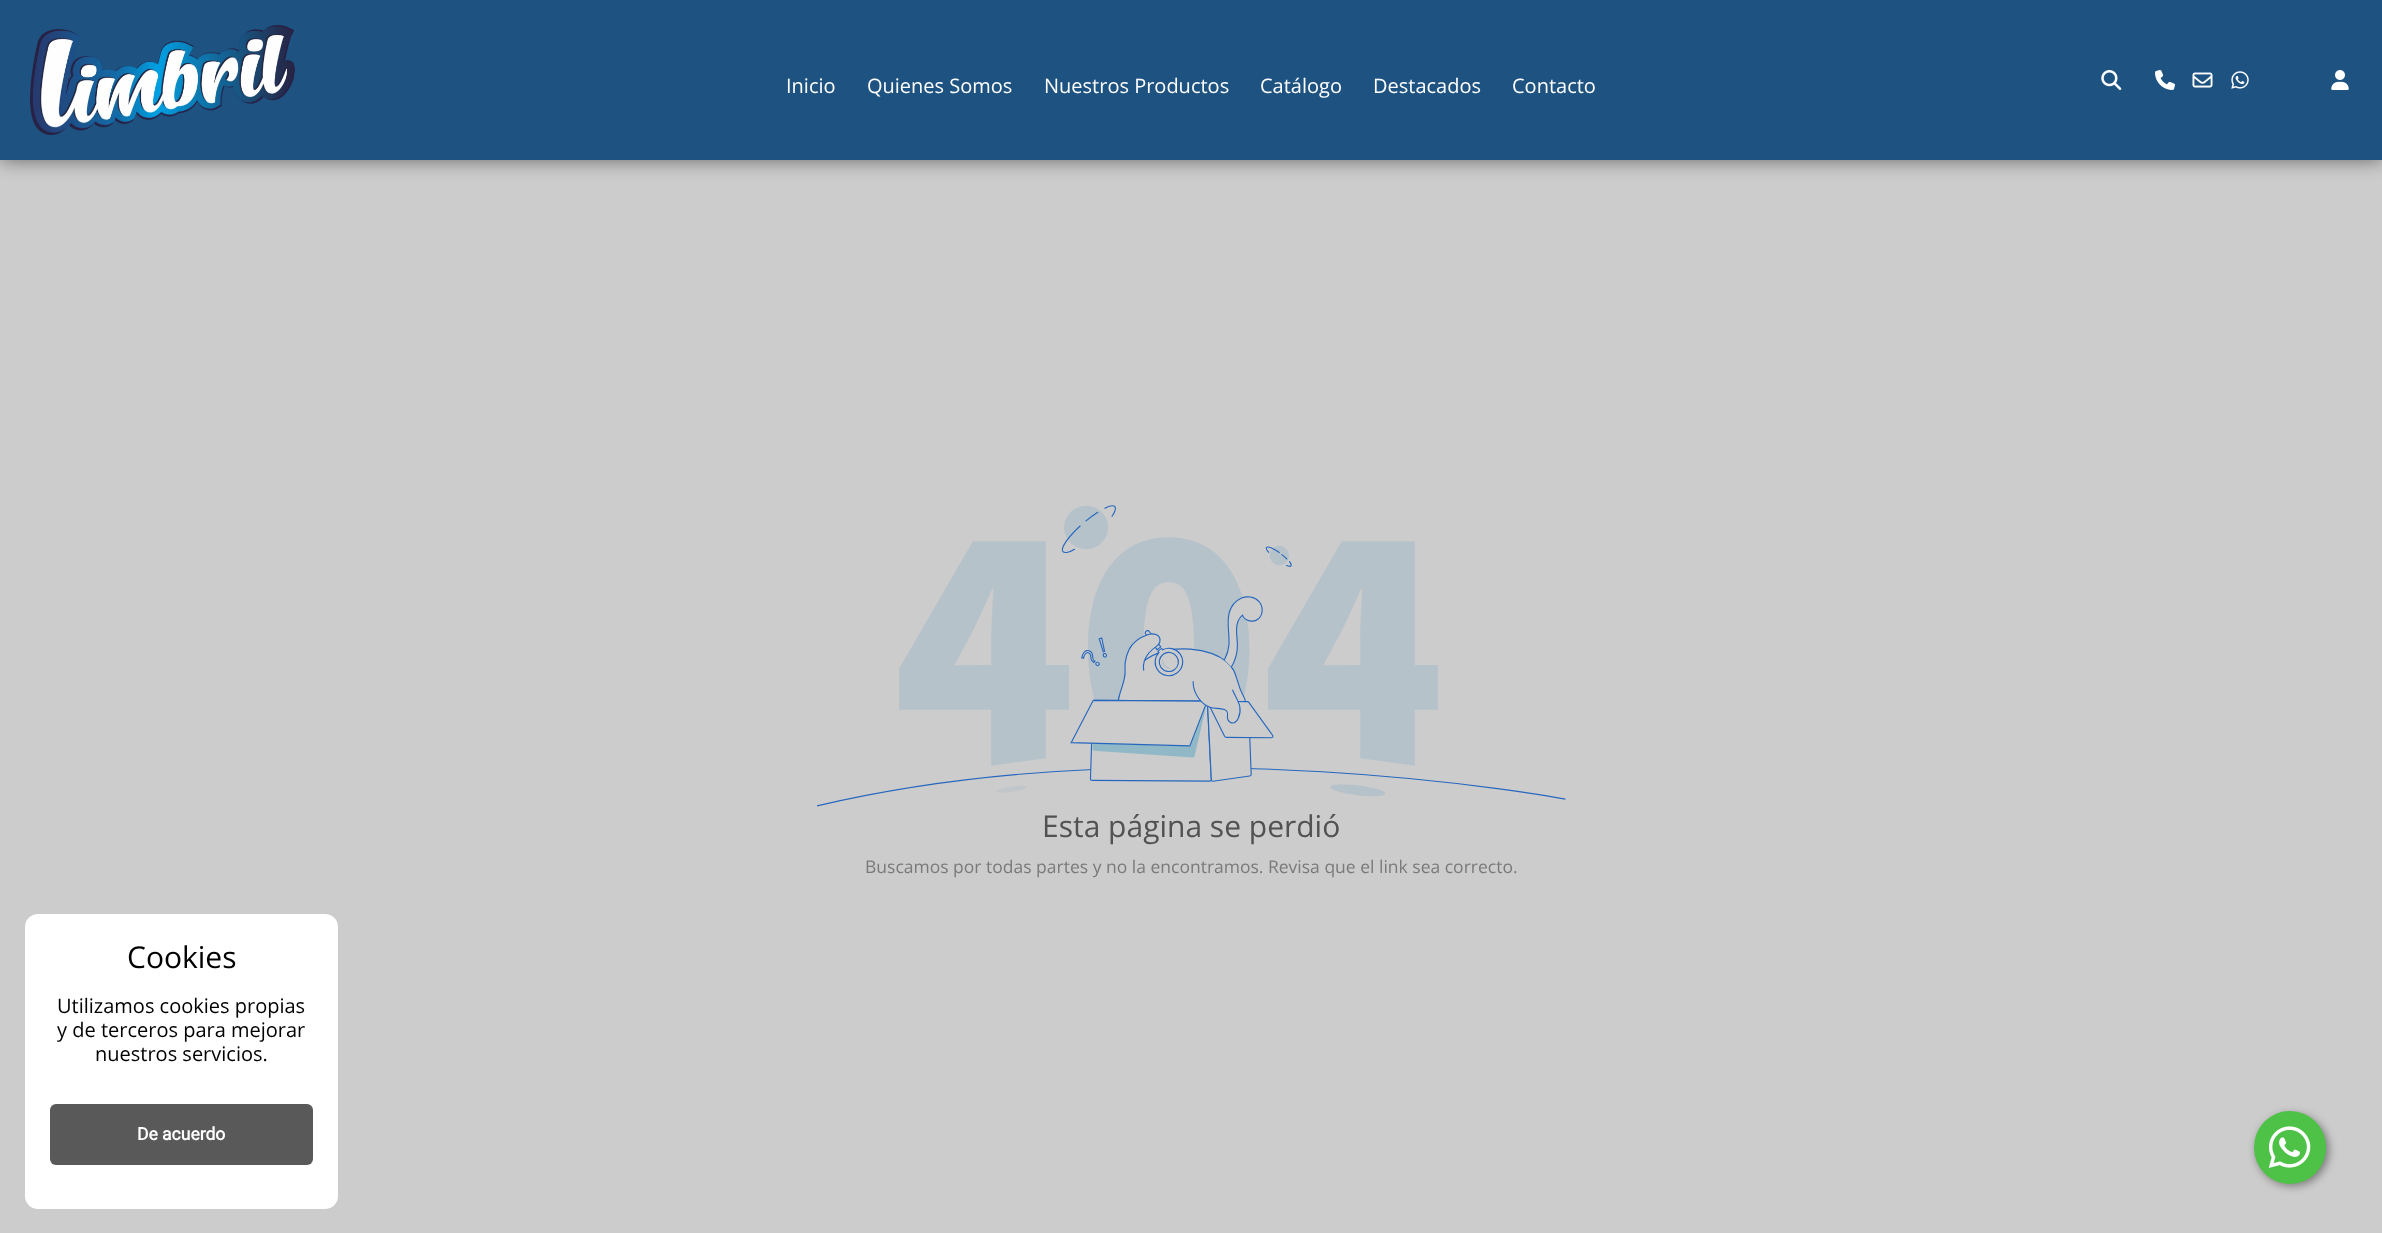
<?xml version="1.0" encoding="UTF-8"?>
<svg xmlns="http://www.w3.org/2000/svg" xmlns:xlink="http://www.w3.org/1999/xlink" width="2382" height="1233">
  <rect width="100%" height="100%" fill="#cccccc" />
  <rect width="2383" height="160" fill="#000000" fill-opacity="0.5" filter="blur(9.5px)" />
  <rect width="2382" height="160" fill="#1d5281" />
  <image x="30" y="25" width="265" height="110" xlink:href="image1.png" />
  <image x="2101" y="70" width="21" height="20" xlink:href="image2.png" />
  <image x="2155" y="70" width="20" height="20" xlink:href="image3.png" />
  <image x="2192" y="72" width="21" height="16" xlink:href="image4.png" />
  <image x="2231" y="71" width="18" height="18" xlink:href="image5.png" />
  <image x="2331" y="70" width="18" height="20" xlink:href="image6.png" />
  <image x="817" y="505" width="749" height="302" xlink:href="image7.png" />
  <rect x="25" y="914" width="313" height="295" rx="13" fill="#ffffff" />
  <rect x="50" y="1104" width="263" height="61" rx="6" fill="#595959" />
  <rect x="2256" y="1114" width="73" height="72" rx="36" fill="#000000" fill-opacity="0.4" filter="blur(4px)" />
  <rect x="2254" y="1111" width="72" height="73" rx="36" fill="#4dc247" />
  <image x="2268" y="1126" width="43" height="42" xlink:href="image8.png" />
  <text x="786" y="93" style="font-family: Open Sans; font-size: 20px; fill: #ffffff">Inicio</text>
  <text x="867" y="93" style="font-family: Open Sans; font-size: 20px; fill: #ffffff">Quienes Somos</text>
  <text x="1044" y="93" style="font-family: Open Sans; font-size: 20px; fill: #ffffff">Nuestros Productos</text>
  <text x="1260" y="93" style="font-family: Open Sans; font-size: 20px; fill: #ffffff">Catálogo</text>
  <text x="1373" y="93" style="font-family: Open Sans; font-size: 20px; fill: #ffffff">Destacados</text>
  <text x="1512" y="93" style="font-family: Open Sans; font-size: 20px; fill: #ffffff">Contacto</text>
  <text x="1042" y="837" style="font-family: Open Sans; font-size: 30px; fill: #525252">Esta página se perdió</text>
  <text x="865" y="873" style="font-family: Open Sans; font-size: 17.5px; fill: #7a7a7a">Buscamos por todas partes y no la encontramos. Revisa que el link sea correcto.</text>
  <text x="127" y="968" style="font-family: Open Sans; font-size: 30px; fill: #000000">Cookies</text>
  <text x="57" y="1013" style="font-family: Open Sans; font-size: 20px; fill: #000000">Utilizamos cookies propias</text>
  <text x="57" y="1037" style="font-family: Open Sans; font-size: 20px; fill: #000000">y de terceros para mejorar</text>
  <text x="95" y="1061" style="font-family: Open Sans; font-size: 20px; fill: #000000">nuestros servicios.</text>
  <text x="137" y="1140" style="font-family: Roboto; font-size: 17.5px; font-weight: bold; fill: #ffffff">De acuerdo</text>
</svg>
